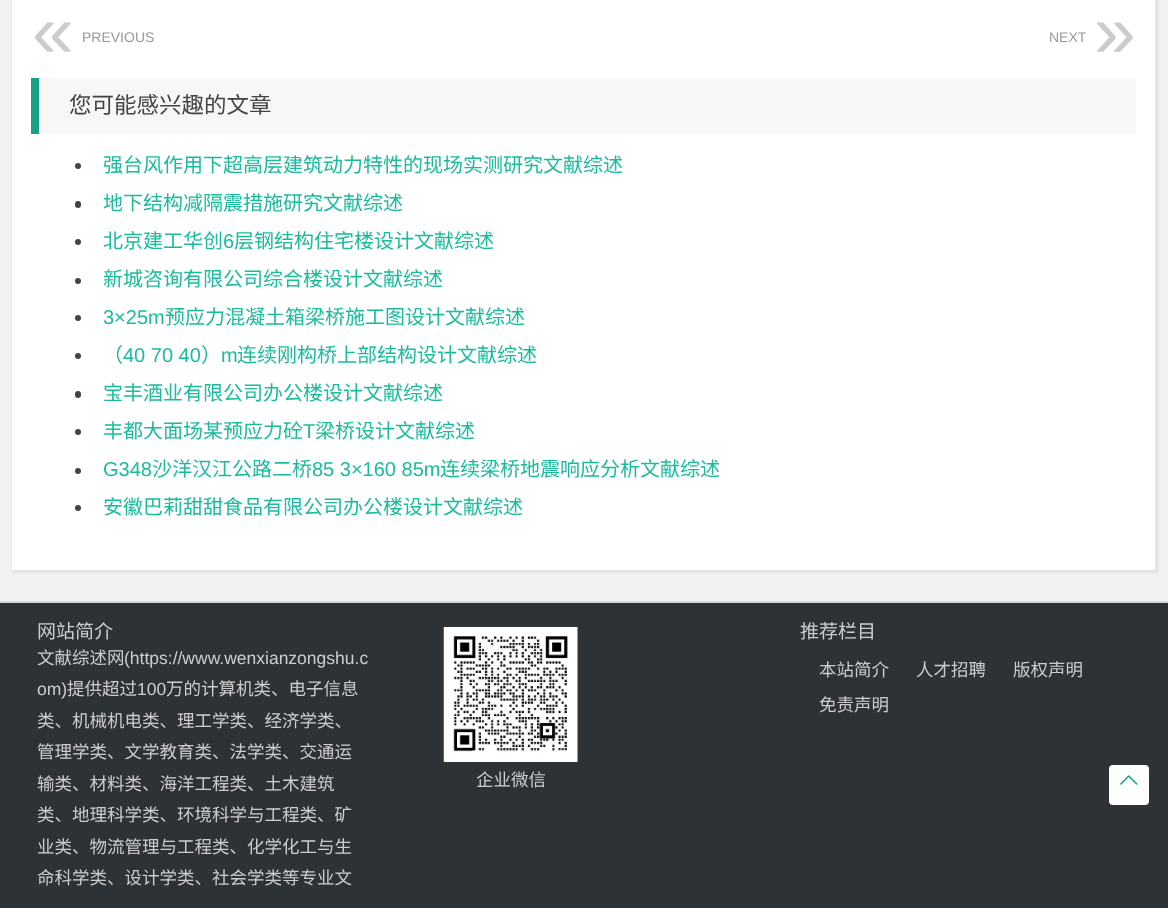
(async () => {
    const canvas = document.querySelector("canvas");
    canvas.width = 1168;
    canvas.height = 908;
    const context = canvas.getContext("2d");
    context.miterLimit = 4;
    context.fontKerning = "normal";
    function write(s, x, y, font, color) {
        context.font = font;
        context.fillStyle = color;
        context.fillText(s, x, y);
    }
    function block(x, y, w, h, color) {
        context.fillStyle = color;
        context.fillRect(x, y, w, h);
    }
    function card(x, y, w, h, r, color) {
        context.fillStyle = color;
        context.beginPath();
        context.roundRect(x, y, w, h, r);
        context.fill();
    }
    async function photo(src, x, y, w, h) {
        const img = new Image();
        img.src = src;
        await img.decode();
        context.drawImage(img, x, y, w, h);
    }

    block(0, 0, 1168, 908, "rgb(242, 242, 242)");
    context.fillStyle = "rgb(226, 222, 222)";
    context.filter = "blur(1px)";
    context.beginPath();
    context.roundRect(13, -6, 1145, 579, 2.5);
    context.fill();
    context.filter = "none";
    context.fillStyle = "rgb(255, 255, 255)";
    context.beginPath();
    context.roundRect(11.5, -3.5, 1144, 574, 2);
    context.fill();
    context.strokeStyle = "rgb(230, 230, 230)";
    context.stroke();
    write("«", 32, 57, "75px Liberation Sans", "rgb(204, 204, 204)");
    write("PREVIOUS", 82, 42, "14px Liberation Sans", "rgb(153, 153, 153)");
    write("NEXT", 1049, 42, "14px Liberation Sans", "rgb(153, 153, 153)");
    write("»", 1094, 57, "75px Liberation Sans", "rgb(204, 204, 204)");
    block(39, 78, 1097, 56, "rgb(247, 247, 247)");
    block(31, 78, 8, 56, "rgb(22, 160, 133)");
    write("您可能感兴趣的文章", 69, 113, "22.5px Noto Sans CJK SC", "rgb(68, 68, 68)");
    context.beginPath();
    context.arc(78, 166, 3, 0, Math.PI * 2);
    context.fill();
    write("强台风作用下超高层建筑动力特性的现场实测研究文献综述", 103, 172, "20px Noto Sans CJK SC", "rgb(26, 188, 156)");
    card(75, 201, 6, 7, 3, "rgb(68, 68, 68)");
    write("地下结构减隔震措施研究文献综述", 103, 210, "20px Noto Sans CJK SC", "rgb(26, 188, 156)");
    context.fillStyle = "rgb(68, 68, 68)";
    context.beginPath();
    context.arc(78, 242, 3, 0, Math.PI * 2);
    context.fill();
    write("北京建工华创", 103, 248, "20px Noto Sans CJK SC", "rgb(26, 188, 156)");
    write("6", 223, 248, "20px Liberation Sans", "rgb(26, 188, 156)");
    write("层钢结构住宅楼设计文献综述", 234, 248, "20px Noto Sans CJK SC", "rgb(26, 188, 156)");
    context.fillStyle = "rgb(68, 68, 68)";
    context.beginPath();
    context.arc(78, 281, 3, 0, Math.PI * 2);
    context.fill();
    write("新城咨询有限公司综合楼设计文献综述", 103, 286, "20px Noto Sans CJK SC", "rgb(26, 188, 156)");
    context.fillStyle = "rgb(68, 68, 68)";
    context.beginPath();
    context.arc(78, 318, 3, 0, Math.PI * 2);
    context.fill();
    write("3×25m", 103, 324, "20px Liberation Sans", "rgb(26, 188, 156)");
    write("预应力混凝土箱梁桥施工图设计文献综述", 165, 324, "20px Noto Sans CJK SC", "rgb(26, 188, 156)");
    context.fillStyle = "rgb(68, 68, 68)";
    context.beginPath();
    context.arc(78, 356, 3, 0, Math.PI * 2);
    context.fill();
    write("（", 103, 362, "20px Noto Sans CJK SC", "rgb(26, 188, 156)");
    write("40 70 40", 123, 362, "20px Liberation Sans", "rgb(26, 188, 156)");
    write("）", 201, 362, "20px Noto Sans CJK SC", "rgb(26, 188, 156)");
    write("m", 221, 362, "20px Liberation Sans", "rgb(26, 188, 156)");
    write("连续刚构桥上部结构设计文献综述", 237, 362, "20px Noto Sans CJK SC", "rgb(26, 188, 156)");
    card(75, 391, 6, 7, 3, "rgb(68, 68, 68)");
    write("宝丰酒业有限公司办公楼设计文献综述", 103, 400, "20px Noto Sans CJK SC", "rgb(26, 188, 156)");
    context.fillStyle = "rgb(68, 68, 68)";
    context.beginPath();
    context.arc(78, 432, 3, 0, Math.PI * 2);
    context.fill();
    write("丰都大面场某预应力砼", 103, 438, "20px Noto Sans CJK SC", "rgb(26, 188, 156)");
    write("T", 303, 438, "20px Liberation Sans", "rgb(26, 188, 156)");
    write("梁桥设计文献综述", 315, 438, "20px Noto Sans CJK SC", "rgb(26, 188, 156)");
    context.fillStyle = "rgb(68, 68, 68)";
    context.beginPath();
    context.arc(78, 471, 3, 0, Math.PI * 2);
    context.fill();
    write("G348", 103, 476, "20px Liberation Sans", "rgb(26, 188, 156)");
    write("沙洋汉江公路二桥", 152, 476, "20px Noto Sans CJK SC", "rgb(26, 188, 156)");
    write("85 3×160 85m", 312, 476, "20px Liberation Sans", "rgb(26, 188, 156)");
    write("连续梁桥地震响应分析文献综述", 440, 476, "20px Noto Sans CJK SC", "rgb(26, 188, 156)");
    context.fillStyle = "rgb(68, 68, 68)";
    context.beginPath();
    context.arc(78, 508, 3, 0, Math.PI * 2);
    context.fill();
    write("安徽巴莉甜甜食品有限公司办公楼设计文献综述", 103, 514, "20px Noto Sans CJK SC", "rgb(26, 188, 156)");
    context.fillStyle = "rgba(0, 0, 0, 0.1)";
    context.filter = "blur(0.5px)";
    context.beginPath();
    context.rect(0, 601, 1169, 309);
    context.fill();
    context.filter = "none";
    block(0, 603, 1168, 305, "rgb(45, 50, 55)");
    write("网站简介", 37, 638, "19px Noto Sans CJK SC", "rgb(204, 204, 204)");
    write("文献综述网", 37, 664, "17.5px Noto Sans CJK SC", "rgb(204, 204, 204)");
    write("(https://www.wenxianzongshu.c", 124, 664, "17.5px Liberation Sans", "rgb(204, 204, 204)");
    write("om)", 37, 695, "17.5px Liberation Sans", "rgb(204, 204, 204)");
    write("提供超过", 67, 695, "17.5px Noto Sans CJK SC", "rgb(204, 204, 204)");
    write("100", 137, 695, "17.5px Liberation Sans", "rgb(204, 204, 204)");
    write("万的计算机类、电子信息", 166, 695, "17.5px Noto Sans CJK SC", "rgb(204, 204, 204)");
    write("类、机械机电类、理工学类、经济学类、", 37, 727, "17.5px Noto Sans CJK SC", "rgb(204, 204, 204)");
    write("管理学类、文学教育类、法学类、交通运", 37, 758, "17.5px Noto Sans CJK SC", "rgb(204, 204, 204)");
    write("输类、材料类、海洋工程类、土木建筑", 37, 790, "17.5px Noto Sans CJK SC", "rgb(204, 204, 204)");
    write("类、地理科学类、环境科学与工程类、矿", 37, 821, "17.5px Noto Sans CJK SC", "rgb(204, 204, 204)");
    write("业类、物流管理与工程类、化学化工与生", 37, 853, "17.5px Noto Sans CJK SC", "rgb(204, 204, 204)");
    write("命科学类、设计学类、社会学类等专业文", 37, 884, "17.5px Noto Sans CJK SC", "rgb(204, 204, 204)");
    write("推荐栏目", 800, 638, "19px Noto Sans CJK SC", "rgb(204, 204, 204)");
    write("本站简介", 819, 676, "17.5px Noto Sans CJK SC", "rgb(204, 204, 204)");
    write("人才招聘", 916, 676, "17.5px Noto Sans CJK SC", "rgb(204, 204, 204)");
    write("版权声明", 1013, 676, "17.5px Noto Sans CJK SC", "rgb(204, 204, 204)");
    write("免责声明", 819, 711, "17.5px Noto Sans CJK SC", "rgb(204, 204, 204)");
    await photo("media/1.png", 443, 627, 135, 135);
    write("企业微信", 476, 786, "17.5px Noto Sans CJK SC", "rgb(204, 204, 204)");
    card(1109, 765, 40, 40, 4, "rgb(255, 255, 255)");
    await photo("media/2.png", 1120, 775, 18, 10);
})();
